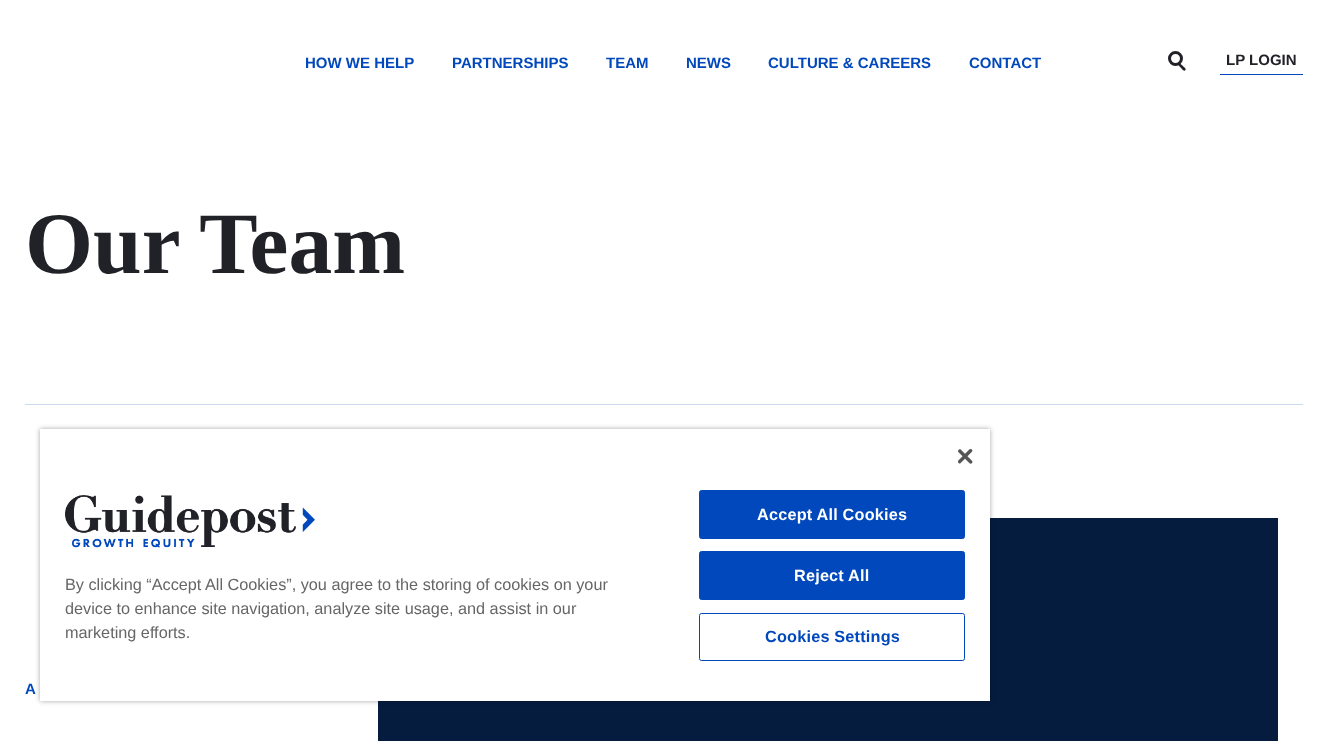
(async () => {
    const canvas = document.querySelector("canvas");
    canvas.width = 1327;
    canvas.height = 741;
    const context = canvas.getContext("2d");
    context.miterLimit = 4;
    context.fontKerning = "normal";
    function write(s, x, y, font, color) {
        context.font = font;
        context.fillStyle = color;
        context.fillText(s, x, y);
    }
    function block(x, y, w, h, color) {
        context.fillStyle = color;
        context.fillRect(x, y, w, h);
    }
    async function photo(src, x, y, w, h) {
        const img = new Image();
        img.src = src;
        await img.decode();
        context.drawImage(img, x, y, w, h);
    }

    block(0, 0, 1327, 741, "rgb(255, 255, 255)");
    write("HOW WE HELP", 305, 68, "bold 15px Liberation Sans", "rgb(0, 72, 187)");
    write("PARTNERSHIPS", 452, 68, "bold 15px Liberation Sans", "rgb(0, 72, 187)");
    write("TEAM", 606, 68, "bold 15px Liberation Sans", "rgb(0, 72, 187)");
    write("NEWS", 686, 68, "bold 15px Liberation Sans", "rgb(0, 72, 187)");
    write("CULTURE & CAREERS", 768, 68, "bold 15px Liberation Sans", "rgb(0, 72, 187)");
    write("CONTACT", 969, 68, "bold 15px Liberation Sans", "rgb(0, 72, 187)");
    context.beginPath();
    context.arc(1175.5, 58.5, 6, 0, Math.PI * 2);
    context.strokeStyle = "rgb(33, 33, 40)";
    context.lineWidth = 3;
    context.stroke();
    context.fillStyle = "rgb(33, 33, 40)";
    context.beginPath();
    context.moveTo(1180, 63.5);
    context.lineTo(1183, 66);
    context.bezierCurveTo(1183.5, 67, 1186.5, 68.5, 1185.5, 70);
    context.bezierCurveTo(1184, 72.5, 1181, 67.5, 1180, 67);
    context.lineTo(1178, 64.5);
    context.bezierCurveTo(1177.5, 63.5, 1179, 62.5, 1180, 63.5);
    context.closePath();
    context.fill();
    write("LP LOGIN", 1226, 65, "bold 15px Liberation Sans", "rgb(33, 33, 40)");
    block(1220, 74, 83, 1, "rgb(0, 72, 187)");
    block(25, 404, 1278, 1, "rgb(204, 218, 241)");
    write("Our Team", 25, 273, "bold 87.5px Liberation Serif", "rgb(33, 33, 40)");
    context.letterSpacing = "1px";
    write("A", 25, 694, "bold 15px Liberation Sans", "rgb(0, 72, 187)");
    block(378, 518, 900, 223, "rgb(6, 28, 63)");
    context.fillStyle = "rgba(0, 0, 0, 0.35)";
    context.filter = "blur(2.5px)";
    context.beginPath();
    context.rect(40, 429, 950, 272);
    context.fill();
    context.filter = "none";
    block(40, 429, 950, 272, "rgb(255, 255, 255)");
    await photo("media/1.png", 958, 449, 15, 15);
    await photo("media/2.png", 65, 495, 250, 53);
    context.letterSpacing = "0px";
    write("By clicking “Accept All Cookies”, you agree to the storing of cookies on your", 65, 590, "16.25px Liberation Sans", "rgb(102, 102, 102)");
    write("device to enhance site navigation, analyze site usage, and assist in our", 65, 614, "16.25px Liberation Sans", "rgb(102, 102, 102)");
    write("marketing efforts.", 65, 638, "16.25px Liberation Sans", "rgb(102, 102, 102)");
    context.fillStyle = "rgb(0, 72, 187)";
    context.beginPath();
    context.roundRect(699.5, 490.5, 265, 48, 2);
    context.fill();
    context.strokeStyle = "rgb(0, 72, 187)";
    context.lineWidth = 1;
    context.stroke();
    context.letterSpacing = "0.2px";
    write("Accept All Cookies", 757, 520, "bold 16.25px Liberation Sans", "rgb(255, 255, 255)");
    context.fillStyle = "rgb(0, 72, 187)";
    context.beginPath();
    context.roundRect(699.5, 551.5, 265, 48, 2);
    context.fill();
    context.stroke();
    write("Reject All", 794, 581, "bold 16.25px Liberation Sans", "rgb(255, 255, 255)");
    context.beginPath();
    context.roundRect(699.5, 613.5, 265, 47, 2);
    context.stroke();
    write("Cookies Settings", 765, 642, "bold 16.25px Liberation Sans", "rgb(0, 72, 187)");
})();
